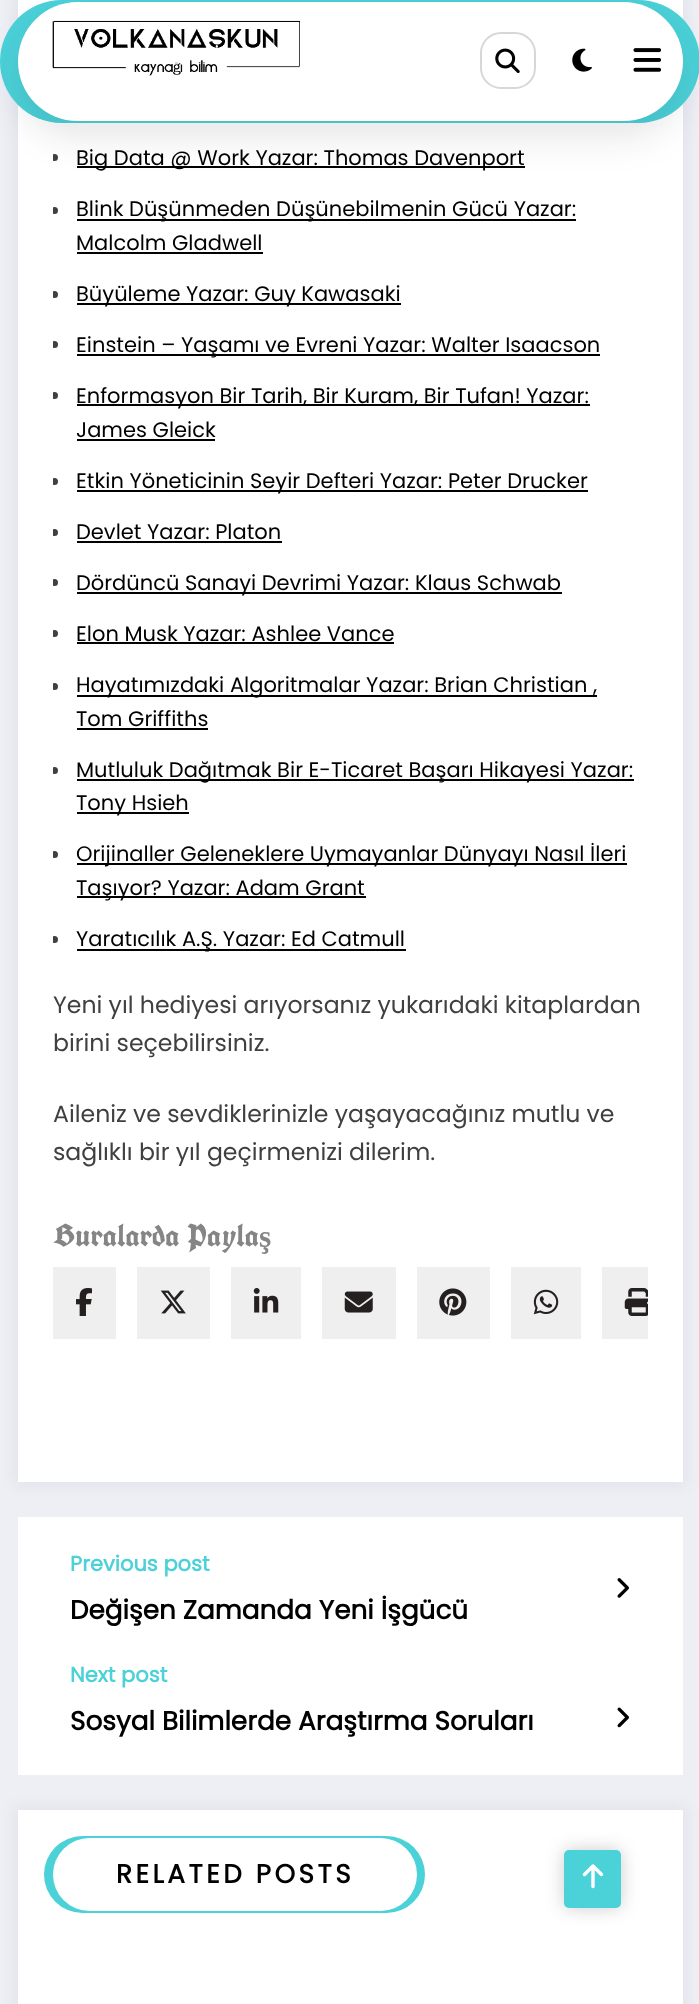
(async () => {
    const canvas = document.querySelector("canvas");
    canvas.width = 699;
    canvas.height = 2004;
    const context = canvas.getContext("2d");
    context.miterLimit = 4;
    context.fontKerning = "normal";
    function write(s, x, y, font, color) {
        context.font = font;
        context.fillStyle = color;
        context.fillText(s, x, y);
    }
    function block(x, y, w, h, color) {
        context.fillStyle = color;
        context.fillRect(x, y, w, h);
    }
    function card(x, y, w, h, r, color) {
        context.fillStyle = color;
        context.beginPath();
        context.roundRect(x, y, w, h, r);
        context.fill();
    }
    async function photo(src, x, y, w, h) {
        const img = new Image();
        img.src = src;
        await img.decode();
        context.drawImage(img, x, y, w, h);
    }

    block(0, 0, 699, 2004, "rgb(238, 238, 245)");
    context.fillStyle = "rgba(23, 23, 35, 0.05)";
    context.filter = "blur(7px)";
    context.beginPath();
    context.rect(14, -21, 672, 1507);
    context.fill();
    context.filter = "none";
    block(18, 0, 665, 1482, "rgb(255, 255, 255)");
    card(0, 0, 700, 123, 61.5, "rgb(75, 209, 216)");
    context.save();
    context.beginPath();
    context.rect(53, 0, 595, 1377);
    context.clip();
    context.fillStyle = "rgb(64, 64, 64)";
    context.beginPath();
    context.arc(54.5, 157.5, 3.5, 0, Math.PI * 2);
    context.fill();
    context.restore();
    block(77, 166, 448, 2, "rgb(0, 0, 0)");
    context.fillStyle = "rgba(20, 18, 35, 0.1)";
    context.filter = "blur(17.5px)";
    context.beginPath();
    context.roundRect(18, 19, 665, 119, 59.5);
    context.fill();
    context.filter = "none";
    card(18, 2, 665, 119, 59.5, "rgb(255, 255, 255)");
    await photo("media/1.png", 52, 20, 248, 56);
    context.beginPath();
    context.roundRect(481, 33, 54, 55, 20);
    context.strokeStyle = "rgb(215, 215, 215)";
    context.lineWidth = 2;
    context.stroke();
    await photo("media/2.png", 495, 48, 25, 25);
    await photo("media/3.png", 572, 48, 20, 24);
    await photo("media/4.png", 633, 48, 28, 24);
    write("Big Data @ Work Yazar: Thomas Davenport", 76, 165, "21px Poppins", "rgb(0, 0, 0)");
    context.save();
    context.beginPath();
    context.rect(53, 0, 595, 1377);
    context.clip();
    context.fillStyle = "rgb(64, 64, 64)";
    context.beginPath();
    context.arc(54.5, 210.5, 3.5, 0, Math.PI * 2);
    context.fill();
    context.restore();
    block(77, 219, 499, 2, "rgb(0, 0, 0)");
    write("Blink Düşünmeden Düşünebilmenin Gücü Yazar:", 76, 216, "21px Poppins", "rgb(0, 0, 0)");
    write("Malcolm Gladwell", 76, 250, "21px Poppins", "rgb(0, 0, 0)");
    block(77, 252, 186, 2, "rgb(0, 0, 0)");
    context.save();
    context.beginPath();
    context.rect(53, 0, 595, 1377);
    context.clip();
    context.fillStyle = "rgb(64, 64, 64)";
    context.beginPath();
    context.arc(54.5, 294.5, 3.5, 0, Math.PI * 2);
    context.fill();
    context.restore();
    block(77, 303, 324, 2, "rgb(0, 0, 0)");
    write("Büyüleme Yazar: Guy Kawasaki", 76, 301, "21px Poppins", "rgb(0, 0, 0)");
    context.save();
    context.beginPath();
    context.rect(53, 0, 595, 1377);
    context.clip();
    context.fillStyle = "rgb(64, 64, 64)";
    context.beginPath();
    context.arc(54.5, 344.5, 3.5, 0, Math.PI * 2);
    context.fill();
    context.restore();
    block(77, 354, 523, 2, "rgb(0, 0, 0)");
    write("Einstein – Yaşamı ve Evreni Yazar: Walter Isaacson", 76, 352, "21px Poppins", "rgb(0, 0, 0)");
    context.save();
    context.beginPath();
    context.rect(53, 0, 595, 1377);
    context.clip();
    context.fillStyle = "rgb(64, 64, 64)";
    context.beginPath();
    context.arc(54.5, 395.5, 3.5, 0, Math.PI * 2);
    context.fill();
    context.restore();
    block(77, 404, 513, 2, "rgb(0, 0, 0)");
    write("Enformasyon Bir Tarih, Bir Kuram, Bir Tufan! Yazar:", 76, 403, "21px Poppins", "rgb(0, 0, 0)");
    write("James Gleick", 76, 437, "21px Poppins", "rgb(0, 0, 0)");
    block(77, 439, 138, 2, "rgb(0, 0, 0)");
    context.save();
    context.beginPath();
    context.rect(53, 0, 595, 1377);
    context.clip();
    context.fillStyle = "rgb(64, 64, 64)";
    context.beginPath();
    context.arc(54.5, 481.5, 3.5, 0, Math.PI * 2);
    context.fill();
    context.restore();
    block(77, 490, 511, 2, "rgb(0, 0, 0)");
    write("Etkin Yöneticinin Seyir Defteri Yazar: Peter Drucker", 76, 488, "21px Poppins", "rgb(0, 0, 0)");
    context.save();
    context.beginPath();
    context.rect(53, 0, 595, 1377);
    context.clip();
    context.fillStyle = "rgb(64, 64, 64)";
    context.beginPath();
    context.arc(54.5, 532.5, 3.5, 0, Math.PI * 2);
    context.fill();
    context.restore();
    write("Devlet Yazar: Platon", 76, 539, "21px Poppins", "rgb(0, 0, 0)");
    block(77, 541, 205, 2, "rgb(0, 0, 0)");
    context.save();
    context.beginPath();
    context.rect(53, 0, 595, 1377);
    context.clip();
    context.fillStyle = "rgb(64, 64, 64)";
    context.beginPath();
    context.arc(54.5, 582.5, 3.5, 0, Math.PI * 2);
    context.fill();
    context.restore();
    block(77, 592, 485, 2, "rgb(0, 0, 0)");
    write("Dördüncü Sanayi Devrimi Yazar: Klaus Schwab", 76, 590, "21px Poppins", "rgb(0, 0, 0)");
    context.save();
    context.beginPath();
    context.rect(53, 0, 595, 1377);
    context.clip();
    context.fillStyle = "rgb(64, 64, 64)";
    context.beginPath();
    context.arc(54.5, 633.5, 3.5, 0, Math.PI * 2);
    context.fill();
    context.restore();
    write("Elon Musk Yazar: Ashlee Vance", 76, 641, "21px Poppins", "rgb(0, 0, 0)");
    block(77, 642, 317, 2, "rgb(0, 0, 0)");
    context.save();
    context.beginPath();
    context.rect(53, 0, 595, 1377);
    context.clip();
    context.fillStyle = "rgb(64, 64, 64)";
    context.beginPath();
    context.arc(54.5, 686.5, 3.5, 0, Math.PI * 2);
    context.fill();
    context.restore();
    block(77, 695, 520, 2, "rgb(0, 0, 0)");
    write("Hayatımızdaki Algoritmalar Yazar: Brian Christian ,", 76, 692, "21px Poppins", "rgb(0, 0, 0)");
    write("Tom Griffiths", 76, 726, "21px Poppins", "rgb(0, 0, 0)");
    block(77, 728, 131, 2, "rgb(0, 0, 0)");
    context.save();
    context.beginPath();
    context.rect(53, 0, 595, 1377);
    context.clip();
    context.fillStyle = "rgb(64, 64, 64)";
    context.beginPath();
    context.arc(54.5, 770.5, 3.5, 0, Math.PI * 2);
    context.fill();
    context.restore();
    block(77, 779, 557, 2, "rgb(0, 0, 0)");
    write("Mutluluk Dağıtmak Bir E-Ticaret Başarı Hikayesi Yazar:", 76, 777, "21px Poppins", "rgb(0, 0, 0)");
    block(77, 812, 112, 2, "rgb(0, 0, 0)");
    write("Tony Hsieh", 76, 810, "21px Poppins", "rgb(0, 0, 0)");
    context.save();
    context.beginPath();
    context.rect(53, 0, 595, 1377);
    context.clip();
    context.fillStyle = "rgb(64, 64, 64)";
    context.beginPath();
    context.arc(54.5, 854.5, 3.5, 0, Math.PI * 2);
    context.fill();
    context.restore();
    block(77, 863, 550, 2, "rgb(0, 0, 0)");
    write("Orijinaller Geleneklere Uymayanlar Dünyayı Nasıl İleri", 76, 861, "21px Poppins", "rgb(0, 0, 0)");
    block(77, 896, 289, 2, "rgb(0, 0, 0)");
    write("Taşıyor? Yazar: Adam Grant", 76, 895, "21px Poppins", "rgb(0, 0, 0)");
    context.save();
    context.beginPath();
    context.rect(53, 0, 595, 1377);
    context.clip();
    context.fillStyle = "rgb(64, 64, 64)";
    context.beginPath();
    context.arc(54.5, 939.5, 3.5, 0, Math.PI * 2);
    context.fill();
    context.restore();
    block(77, 949, 329, 2, "rgb(0, 0, 0)");
    write("Yaratıcılık A.Ş. Yazar: Ed Catmull", 76, 946, "21px Poppins", "rgb(0, 0, 0)");
    write("Yeni yıl hediyesi arıyorsanız yukarıdaki kitaplardan", 53, 1013, "23.6px Poppins", "rgb(64, 64, 64)");
    write("birini seçebilirsiniz.", 53, 1051, "23.6px Poppins", "rgb(64, 64, 64)");
    write("Aileniz ve sevdiklerinizle yaşayacağınız mutlu ve", 53, 1122, "23.6px Poppins", "rgb(64, 64, 64)");
    write("sağlıklı bir yıl geçirmenizi dilerim.", 53, 1160, "23.6px Poppins", "rgb(64, 64, 64)");
    write("Buralarda Paylaş", 53, 1247, "bold 31.5px UnifrakturCook", "rgb(133, 133, 133)");
    block(53, 1267, 63, 72, "rgb(239, 239, 239)");
    await photo("media/5.png", 76, 1288, 16, 28);
    block(137, 1267, 73, 72, "rgb(239, 239, 239)");
    await photo("media/6.png", 160, 1290, 26, 24);
    block(231, 1267, 70, 72, "rgb(239, 239, 239)");
    await photo("media/7.png", 253, 1288, 26, 25);
    block(322, 1267, 74, 72, "rgb(239, 239, 239)");
    await photo("media/8.png", 344, 1291, 29, 22);
    block(417, 1267, 73, 72, "rgb(239, 239, 239)");
    await photo("media/9.png", 439, 1288, 28, 28);
    block(511, 1267, 70, 72, "rgb(239, 239, 239)");
    await photo("media/10.png", 533, 1289, 26, 26);
    block(602, 1267, 46, 72, "rgb(239, 239, 239)");
    await photo("media/11.png", 624, 1288, 24, 28);
    block(18, 1517, 665, 258, "rgb(255, 255, 255)");
    write("Previous post", 70, 1571, "bold 21px Poppins", "rgb(75, 209, 216)");
    write("Değişen Zamanda Yeni İşgücü", 70, 1619, "bold 26.25px Poppins", "rgb(0, 0, 0)");
    await photo("media/12.png", 617, 1578, 12, 20);
    write("Next post", 70, 1682, "bold 21px Poppins", "rgb(75, 209, 216)");
    write("Sosyal Bilimlerde Araştırma Soruları", 70, 1730, "bold 26.25px Poppins", "rgb(0, 0, 0)");
    await photo("media/13.png", 617, 1707, 12, 21);
    context.fillStyle = "rgba(23, 23, 35, 0.05)";
    context.filter = "blur(7px)";
    context.beginPath();
    context.rect(14, 1806, 672, 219);
    context.fill();
    context.filter = "none";
    block(18, 1810, 665, 194, "rgb(255, 255, 255)");
    card(44, 1836, 381, 77, 38.5, "rgb(75, 209, 216)");
    card(53, 1838, 364, 73, 36.5, "rgb(255, 255, 255)");
    context.letterSpacing = "3.5px";
    write("RELATED POSTS", 116, 1883, "bold 26.25px Poppins", "rgb(0, 0, 0)");
    context.fillStyle = "rgba(0, 0, 0, 0.2)";
    context.filter = "blur(9px)";
    context.beginPath();
    context.roundRect(564, 1850, 57, 58, 5);
    context.fill();
    context.filter = "none";
    card(564, 1850, 57, 58, 5, "rgb(75, 209, 216)");
    await photo("media/14.png", 582, 1864, 22, 25);
})();
